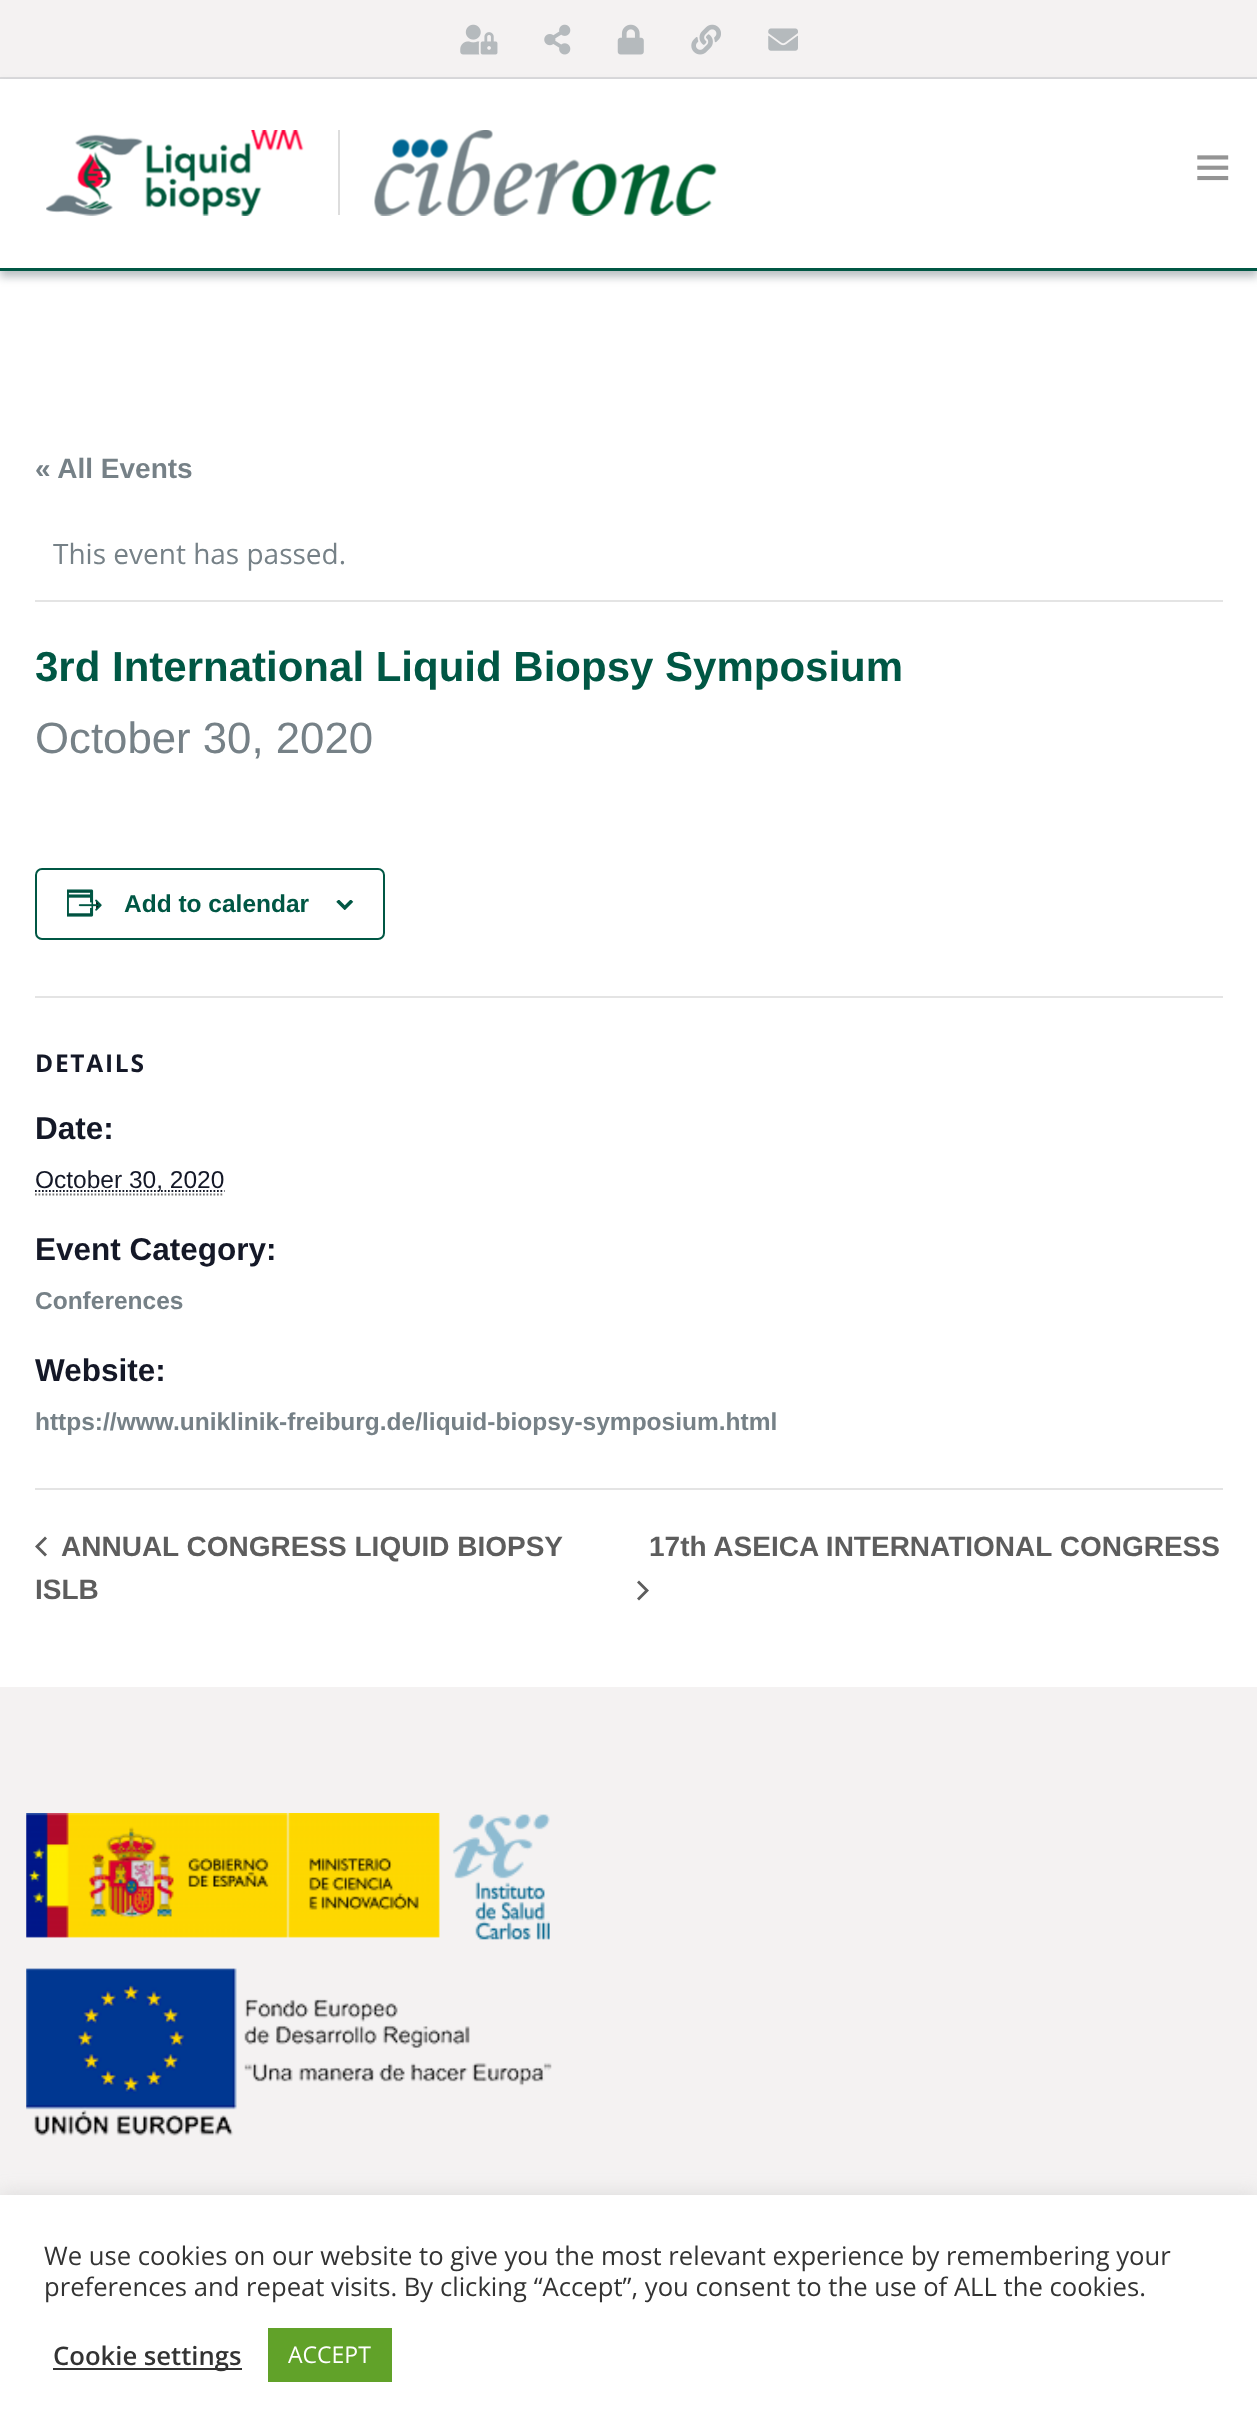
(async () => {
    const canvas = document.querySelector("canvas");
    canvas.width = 1257;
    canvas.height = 2433;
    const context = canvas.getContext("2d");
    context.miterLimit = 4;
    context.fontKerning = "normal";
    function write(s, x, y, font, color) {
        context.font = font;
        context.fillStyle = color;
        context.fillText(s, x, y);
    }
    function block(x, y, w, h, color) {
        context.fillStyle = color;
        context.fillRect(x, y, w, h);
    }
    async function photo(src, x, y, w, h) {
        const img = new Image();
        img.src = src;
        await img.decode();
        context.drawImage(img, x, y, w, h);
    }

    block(0, 0, 1257, 2433, "rgb(255, 255, 255)");
    block(0, 0, 1257, 77, "rgb(244, 242, 242)");
    block(0, 77, 1257, 2, "rgb(219, 219, 221)");
    await photo("media/1.png", 460, 24, 38, 31);
    await photo("media/2.png", 544, 24, 27, 31);
    await photo("media/3.png", 617, 24, 27, 31);
    await photo("media/4.png", 691, 24, 30, 31);
    await photo("media/5.png", 768, 28, 30, 23);
    context.save();
    context.beginPath();
    context.moveTo(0, 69);
    context.lineTo(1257, 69);
    context.lineTo(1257, 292);
    context.lineTo(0, 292);
    context.closePath();
    context.moveTo(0, 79);
    context.lineTo(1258, 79);
    context.lineTo(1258, 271);
    context.lineTo(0, 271);
    context.closePath();
    context.clip("evenodd");
    context.fillStyle = "rgba(118, 129, 135, 0.5)";
    context.filter = "blur(4.5px)";
    context.beginPath();
    context.rect(0, 84, 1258, 193);
    context.fill();
    context.filter = "none";
    context.restore();
    await photo("media/6.png", 46, 130, 258, 86);
    block(338, 130, 2, 85, "rgb(221, 221, 221)");
    await photo("media/7.png", 374, 130, 343, 86);
    await photo("media/8.png", 1197, 155, 32, 26);
    block(0, 268, 1257, 3, "rgb(0, 87, 68)");
    write("« All Events", 35, 478, "bold 28px Liberation Sans", "rgb(118, 129, 135)");
    block(35, 600, 1188, 2, "rgb(228, 228, 228)");
    write("This event has passed.", 53, 564, "28px Open Sans", "rgb(118, 129, 135)");
    write("3rd International Liquid Biopsy Symposium", 35, 681, "bold 42px Liberation Sans", "rgb(0, 87, 68)");
    write("October 30, 2020", 35, 753, "43.75px Liberation Sans", "rgb(118, 129, 135)");
    context.beginPath();
    context.roundRect(36, 869, 348, 70, 6);
    context.strokeStyle = "rgb(0, 87, 68)";
    context.lineWidth = 2;
    context.stroke();
    await photo("media/9.png", 67, 889, 35, 28);
    write("Add to calendar", 124, 912, "bold 24.5px Liberation Sans", "rgb(0, 87, 68)");
    await photo("media/10.png", 336, 900, 18, 10);
    block(35, 996, 1188, 2, "rgb(228, 228, 228)");
    context.letterSpacing = "1.75px";
    write("DETAILS", 35, 1072, "bold 24.5px Open Sans", "rgb(20, 24, 39)");
    context.letterSpacing = "0px";
    write("Date:", 35, 1139, "bold 31.5px Liberation Sans", "rgb(20, 24, 39)");
    context.beginPath();
    context.moveTo(35, 1191);
    context.lineTo(224.5, 1191);
    context.strokeStyle = "rgb(20, 24, 39)";
    context.lineWidth = 1.8;
    context.setLineDash([1.75, 1.75]);
    context.stroke();
    write("October 30, 2020", 35, 1188, "24.5px Liberation Sans", "rgb(20, 24, 39)");
    context.beginPath();
    context.moveTo(35, 1194.5);
    context.lineTo(224, 1194.5);
    context.strokeStyle = "rgb(119, 119, 119)";
    context.stroke();
    write("Event Category:", 35, 1260, "bold 31.5px Liberation Sans", "rgb(20, 24, 39)");
    write("Conferences", 35, 1309, "bold 24.5px Liberation Sans", "rgb(118, 129, 135)");
    write("Website:", 35, 1381, "bold 31.5px Liberation Sans", "rgb(20, 24, 39)");
    write("https://www.uniklinik-freiburg.de/liquid-biopsy-symposium.html", 35, 1430, "bold 24.5px Liberation Sans", "rgb(118, 129, 135)");
    block(35, 1488, 1188, 2, "rgb(228, 228, 228)");
    context.fillStyle = "rgb(93, 93, 93)";
    context.beginPath();
    context.moveTo(47, 1554.5);
    context.lineTo(45, 1556.5);
    context.lineTo(35, 1546.5);
    context.lineTo(45, 1536.5);
    context.lineTo(47, 1538.5);
    context.lineTo(39, 1546.5);
    context.closePath();
    context.fill();
    write("ANNUAL CONGRESS LIQUID BIOPSY", 61, 1556, "bold 28px Liberation Sans", "rgb(93, 93, 93)");
    write("ISLB", 35, 1599, "bold 28px Liberation Sans", "rgb(93, 93, 93)");
    write("17th ASEICA INTERNATIONAL CONGRESS", 649, 1556, "bold 28px Liberation Sans", "rgb(93, 93, 93)");
    context.beginPath();
    context.moveTo(637, 1582.5);
    context.lineTo(639, 1580.5);
    context.lineTo(649, 1590.5);
    context.lineTo(639, 1600.5);
    context.lineTo(637, 1598.5);
    context.lineTo(645, 1590.5);
    context.closePath();
    context.fill();
    block(0, 1687, 1257, 508, "rgb(244, 242, 242)");
    await photo("media/11.png", 26, 1813, 526, 323);
    context.fillStyle = "rgba(172, 171, 171, 0.3)";
    context.filter = "blur(9px)";
    context.beginPath();
    context.rect(0, 2193, 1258, 240);
    context.fill();
    context.filter = "none";
    block(0, 2195, 1257, 238, "rgb(255, 255, 255)");
    write("We use cookies on our website to give you the most relevant experience by remembering your", 44, 2265, "25.65px Open Sans", "rgb(51, 51, 51)");
    write("preferences and repeat visits. By clicking “Accept”, you consent to the use of ALL the cookies.", 44, 2296, "25.65px Open Sans", "rgb(51, 51, 51)");
    block(53, 2368, 189, 2, "rgb(51, 51, 51)");
    write("Cookie settings", 53, 2365, "600 25.65px Open Sans", "rgb(51, 51, 51)");
    block(268, 2328, 124, 54, "rgb(97, 162, 41)");
    write("ACCEPT", 288, 2363, "23px Open Sans", "rgb(255, 255, 255)");
})();
